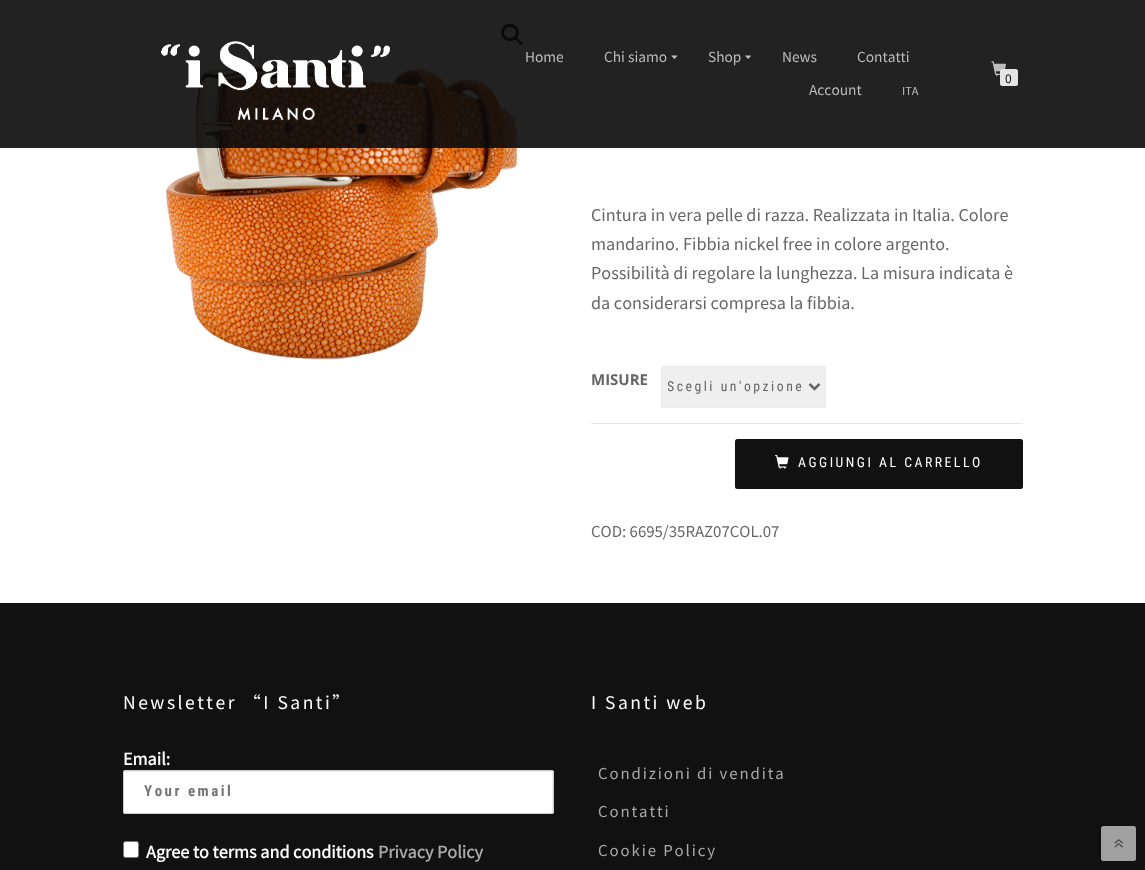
(async () => {
    const canvas = document.querySelector("canvas");
    canvas.width = 1145;
    canvas.height = 870;
    const context = canvas.getContext("2d");
    context.miterLimit = 4;
    context.fontKerning = "none";
    function write(s, x, y, font, color) {
        context.font = font;
        context.fillStyle = color;
        context.fillText(s, x, y);
    }
    function block(x, y, w, h, color) {
        context.fillStyle = color;
        context.fillRect(x, y, w, h);
    }
    function card(x, y, w, h, r, color) {
        context.fillStyle = color;
        context.beginPath();
        context.roundRect(x, y, w, h, r);
        context.fill();
    }
    async function photo(src, x, y, w, h) {
        const img = new Image();
        img.src = src;
        await img.decode();
        context.drawImage(img, x, y, w, h);
    }

    block(0, 0, 1145, 870, "rgb(255, 255, 255)");
    context.beginPath();
    context.roundRect(502.5, 25.5, 15, 14, 7);
    context.strokeStyle = "rgb(0, 0, 0)";
    context.lineWidth = 3;
    context.stroke();
    context.fillStyle = "rgb(0, 0, 0)";
    context.beginPath();
    context.moveTo(515, 37.5);
    context.bezierCurveTo(516.5, 36.5, 519, 39.5, 519.5, 40.5);
    context.bezierCurveTo(520.5, 41, 523.5, 43.5, 522.5, 45);
    context.bezierCurveTo(521, 46, 518.5, 43, 518, 42);
    context.bezierCurveTo(517, 41.5, 514, 39, 515, 37.5);
    context.closePath();
    context.fill();
    await photo("media/5.png", 166, 59, 352, 301);
    block(0, 0, 1145, 148, "rgba(10, 10, 10, 0.9)");
    await photo("media/1.png", 161, 41, 229, 80);
    write("Home", 525, 62, "100 13.75px Noto Sans TC", "rgb(189, 189, 189)");
    write("Chi siamo", 604, 62, "100 13.75px Noto Sans TC", "rgb(189, 189, 189)");
    await photo("media/2.png", 671, 55, 7, 4);
    write("Shop", 708, 62, "100 13.75px Noto Sans TC", "rgb(189, 189, 189)");
    await photo("media/3.png", 745, 55, 6, 4);
    write("News", 782, 62, "100 13.75px Noto Sans TC", "rgb(189, 189, 189)");
    write("Contatti", 857, 62, "100 13.75px Noto Sans TC", "rgb(189, 189, 189)");
    write("Account", 809, 95, "100 13.75px Noto Sans TC", "rgb(189, 189, 189)");
    write("ITA", 902, 95, "100 11px Noto Sans TC", "rgb(189, 189, 189)");
    await photo("media/4.png", 991, 61, 15, 16);
    card(1000, 69, 18, 17, 2.5, "rgb(229, 229, 229)");
    write("0", 1005, 83, "100 12px Noto Sans TC", "rgb(17, 17, 17)");
    write("Cintura in vera pelle di razza. Realizzata", 591, 221, "100 16.25px Noto Sans TC", "rgb(102, 102, 102)");
    write("in Italia. Colore", 894, 221, "100 16.25px Noto Sans TC", "rgb(102, 102, 102)");
    write("mandarino. Fibbia nickel free in colore argento.", 591, 250, "100 16.25px Noto Sans TC", "rgb(102, 102, 102)");
    write("Possibilità di regolare la lunghezza. La misura indicata", 591, 279, "100 16.25px Noto Sans TC", "rgb(102, 102, 102)");
    write("è", 1004, 279, "100 16.25px Noto Sans TC", "rgb(102, 102, 102)");
    write("da considerarsi compresa la fibbia.", 591, 309, "100 16.25px Noto Sans TC", "rgb(102, 102, 102)");
    write("MISURE", 591, 385, "bold 15px Open Sans", "rgb(102, 102, 102)");
    context.fillStyle = "rgb(239, 239, 239)";
    context.beginPath();
    context.roundRect(661.5, 366.5, 164, 41, 2);
    context.fill();
    context.strokeStyle = "rgb(234, 234, 234)";
    context.lineWidth = 1;
    context.stroke();
    context.beginPath();
    context.moveTo(809.5, 384);
    context.lineTo(814.5, 389);
    context.lineTo(819.5, 384);
    context.strokeStyle = "rgb(102, 102, 102)";
    context.lineWidth = 2.5;
    context.stroke();
    context.save();
    context.beginPath();
    context.rect(668, 378, 137, 18);
    context.clip();
    context.letterSpacing = "2.5px";
    write("Scegli un'opzione", 667, 391, "13.75px Roboto Condensed", "rgb(102, 102, 102)");
    context.restore();
    block(591, 423, 432, 1, "rgb(230, 230, 230)");
    card(735, 439, 288, 50, 2.5, "rgb(17, 17, 17)");
    await photo("media/6.png", 775, 455, 14, 14);
    context.letterSpacing = "2.5px";
    write("AGGIUNGI AL CARRELLO", 798, 467, "13.75px Roboto Condensed", "rgb(255, 255, 255)");
    context.letterSpacing = "0px";
    write("COD: 6695/35RAZ07COL.07", 591, 537, "100 15px Noto Sans TC", "rgb(102, 102, 102)");
    block(0, 603, 1145, 267, "rgb(17, 17, 17)");
    context.letterSpacing = "2.5px";
    write("Newsletter “I Santi”", 123, 709, "100 17.5px Noto Sans TC", "rgb(255, 255, 255)");
    context.letterSpacing = "0px";
    write("Email:", 123, 765, "bold 16.25px Noto Sans TC", "rgb(255, 255, 255)");
    card(123, 770, 431, 44, 2.5, "rgb(255, 255, 255)");
    context.fillStyle = "rgb(236, 236, 236)";
    context.beginPath();
    context.moveTo(125, 772);
    context.lineTo(551, 772);
    context.bezierCurveTo(553, 772, 552, 784, 552, 787);
    context.lineTo(552, 813);
    context.lineTo(553, 812);
    context.lineTo(553, 772);
    context.lineTo(552, 771);
    context.lineTo(125, 771);
    context.bezierCurveTo(124, 771, 124, 773, 124, 774);
    context.bezierCurveTo(124, 773, 124, 772, 125, 772);
    context.closePath();
    context.fill();
    context.beginPath();
    context.roundRect(123.5, 770.5, 430, 43, 2);
    context.strokeStyle = "rgb(204, 204, 204)";
    context.lineWidth = 1;
    context.stroke();
    context.letterSpacing = "2.5px";
    write("Your email", 144, 796, "bold 15px Roboto Condensed", "rgb(117, 117, 117)");
    context.fillStyle = "rgb(255, 255, 255)";
    context.beginPath();
    context.roundRect(123.5, 841.5, 15, 16, 2);
    context.fill();
    context.strokeStyle = "rgb(118, 118, 118)";
    context.stroke();
    context.letterSpacing = "0px";
    write("Agree to terms and conditions", 146, 858, "bold 16.25px Noto Sans TC", "rgb(255, 255, 255)");
    write("Privacy Policy", 378, 858, "bold 16.25px Noto Sans TC", "rgb(170, 170, 170)");
    context.letterSpacing = "2.5px";
    write("I Santi web", 591, 709, "100 17.5px Noto Sans TC", "rgb(255, 255, 255)");
    context.letterSpacing = "1.9px";
    write("Condizioni di vendita", 598, 779, "100 15px Noto Sans TC", "rgb(170, 170, 170)");
    write("Contatti", 598, 817, "100 15px Noto Sans TC", "rgb(170, 170, 170)");
    write("Cookie Policy", 598, 856, "100 15px Noto Sans TC", "rgb(170, 170, 170)");
    card(1101, 826, 35, 35, 2.5, "rgb(160, 160, 160)");
    await photo("media/7.png", 1114, 839, 9, 9);
})();
